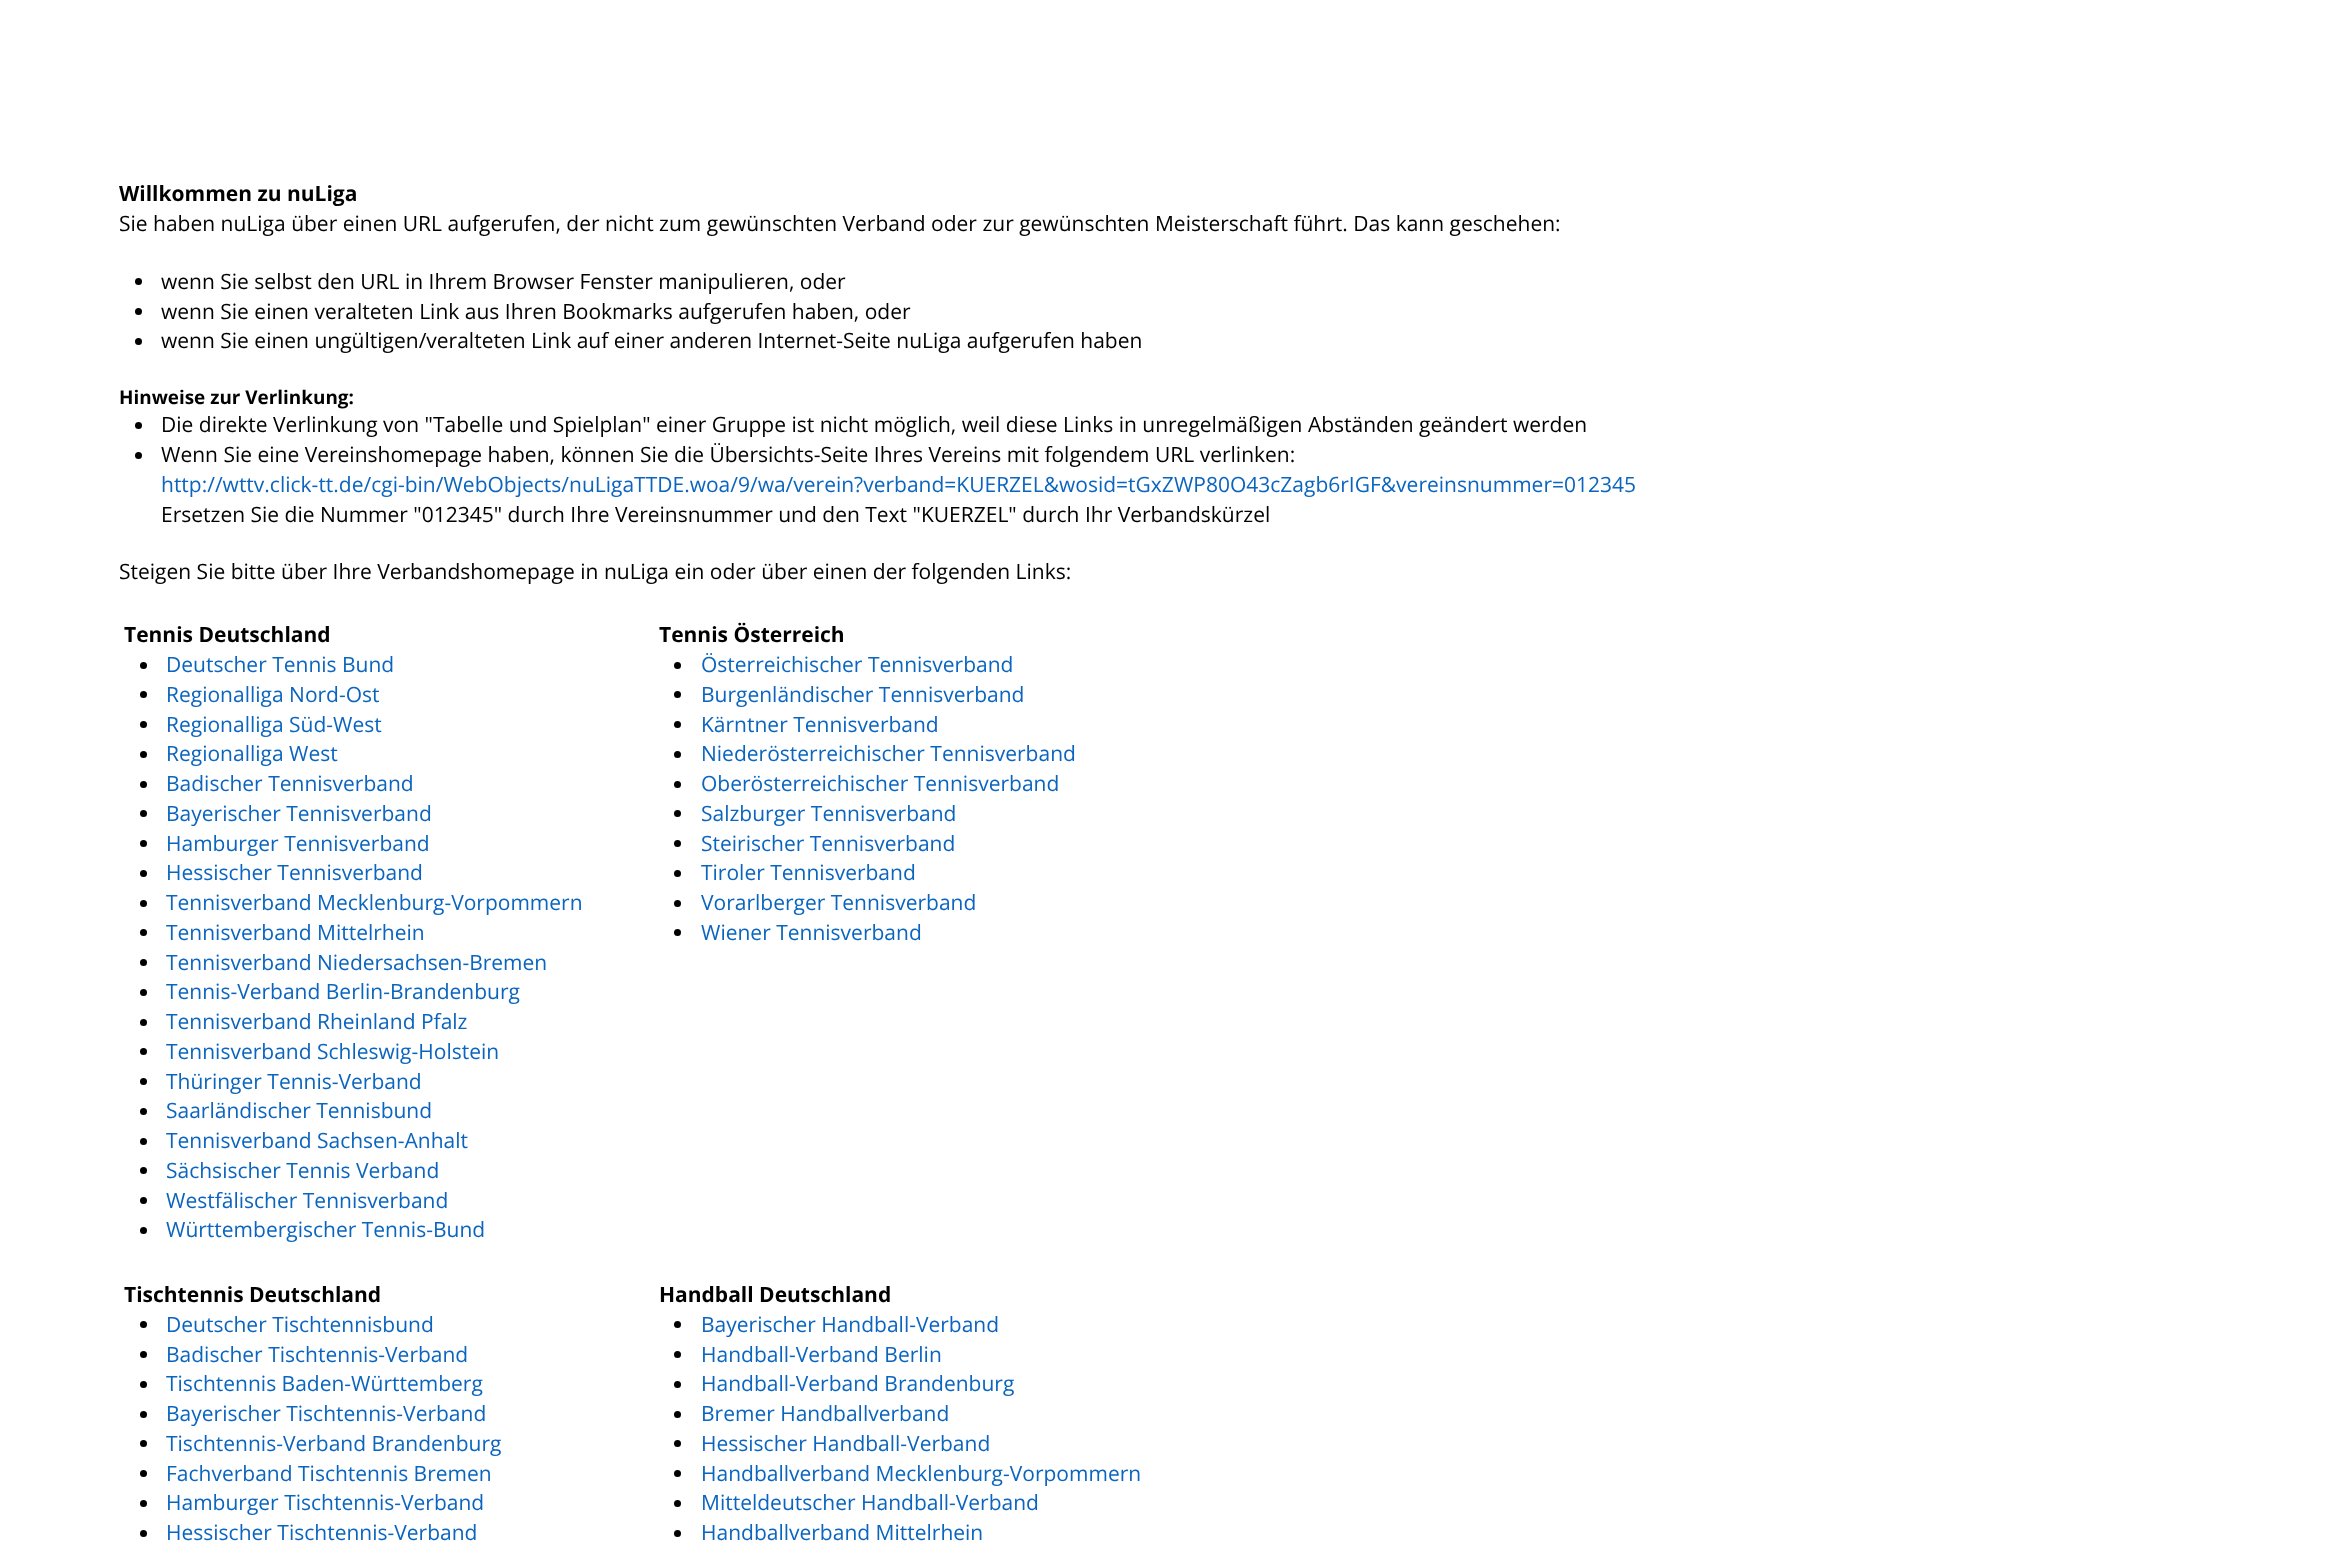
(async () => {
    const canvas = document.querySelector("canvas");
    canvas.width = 2326;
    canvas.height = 1542;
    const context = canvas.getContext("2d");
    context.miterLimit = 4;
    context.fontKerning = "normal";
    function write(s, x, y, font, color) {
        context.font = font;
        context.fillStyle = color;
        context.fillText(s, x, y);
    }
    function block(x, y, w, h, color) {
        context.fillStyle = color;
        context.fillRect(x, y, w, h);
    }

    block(0, 0, 2326, 1542, "rgb(255, 255, 255)");
    write("Willkommen zu nuLiga", 119, 201, "bold 21px Open Sans", "rgb(0, 0, 0)");
    write("Sie haben nuLiga über einen URL aufgerufen, der nicht zum gewünschten Verband oder zur gewünschten Meisterschaft führt. Das kann geschehen:", 119, 231, "21px Open Sans", "rgb(0, 0, 0)");
    context.beginPath();
    context.arc(138.5, 281.5, 3.5, 0, Math.PI * 2);
    context.fill();
    write("wenn Sie selbst den URL in Ihrem Browser Fenster manipulieren, oder", 161, 289, "21px Open Sans", "rgb(0, 0, 0)");
    context.beginPath();
    context.arc(138.5, 311.5, 3.5, 0, Math.PI * 2);
    context.fill();
    write("wenn Sie einen veralteten Link aus Ihren Bookmarks aufgerufen haben, oder", 161, 319, "21px Open Sans", "rgb(0, 0, 0)");
    context.beginPath();
    context.arc(138.5, 341.5, 3.5, 0, Math.PI * 2);
    context.fill();
    write("wenn Sie einen ungültigen/veralteten Link auf einer anderen Internet-Seite nuLiga aufgerufen haben", 161, 348, "21px Open Sans", "rgb(0, 0, 0)");
    write("Hinweise zur Verlinkung:", 119, 404, "bold 18.9px Open Sans", "rgb(0, 0, 0)");
    context.beginPath();
    context.arc(138.5, 425.5, 3.5, 0, Math.PI * 2);
    context.fill();
    write("Die direkte Verlinkung von \"Tabelle und Spielplan\" einer Gruppe ist nicht möglich, weil diese Links in unregelmäßigen Abständen geändert werden", 161, 432, "21px Open Sans", "rgb(0, 0, 0)");
    context.beginPath();
    context.arc(138.5, 455.5, 3.5, 0, Math.PI * 2);
    context.fill();
    write("Wenn Sie eine Vereinshomepage haben, können Sie die Übersichts-Seite Ihres Vereins mit folgendem URL verlinken:", 161, 462, "21px Open Sans", "rgb(0, 0, 0)");
    write("http://wttv.click-tt.de/cgi-bin/WebObjects/nuLigaTTDE.woa/9/wa/verein?verband=KUERZEL&wosid=tGxZWP80O43cZagb6rIGF&vereinsnummer=012345", 161, 492, "21px Open Sans", "rgb(11, 101, 191)");
    write("Ersetzen Sie die Nummer \"012345\" durch Ihre Vereinsnummer und den Text \"KUERZEL\" durch Ihr Verbandskürzel", 161, 522, "21px Open Sans", "rgb(0, 0, 0)");
    write("Steigen Sie bitte über Ihre Verbandshomepage in nuLiga ein oder über einen der folgenden Links:", 119, 579, "21px Open Sans", "rgb(0, 0, 0)");
    write("Tennis Deutschland", 124, 642, "bold 21px Open Sans", "rgb(0, 0, 0)");
    context.beginPath();
    context.arc(143.5, 665.5, 3.5, 0, Math.PI * 2);
    context.fill();
    write("Deutscher Tennis Bund", 166, 672, "21px Open Sans", "rgb(11, 101, 191)");
    context.fillStyle = "rgb(0, 0, 0)";
    context.beginPath();
    context.arc(143.5, 694.5, 3.5, 0, Math.PI * 2);
    context.fill();
    write("Regionalliga Nord-Ost", 166, 702, "21px Open Sans", "rgb(11, 101, 191)");
    context.fillStyle = "rgb(0, 0, 0)";
    context.beginPath();
    context.arc(143.5, 724.5, 3.5, 0, Math.PI * 2);
    context.fill();
    write("Regionalliga Süd-West", 166, 732, "21px Open Sans", "rgb(11, 101, 191)");
    context.fillStyle = "rgb(0, 0, 0)";
    context.beginPath();
    context.arc(143.5, 754.5, 3.5, 0, Math.PI * 2);
    context.fill();
    write("Regionalliga West", 166, 761, "21px Open Sans", "rgb(11, 101, 191)");
    context.fillStyle = "rgb(0, 0, 0)";
    context.beginPath();
    context.arc(143.5, 784.5, 3.5, 0, Math.PI * 2);
    context.fill();
    write("Badischer Tennisverband", 166, 791, "21px Open Sans", "rgb(11, 101, 191)");
    context.fillStyle = "rgb(0, 0, 0)";
    context.beginPath();
    context.arc(143.5, 813.5, 3.5, 0, Math.PI * 2);
    context.fill();
    write("Bayerischer Tennisverband", 166, 821, "21px Open Sans", "rgb(11, 101, 191)");
    context.fillStyle = "rgb(0, 0, 0)";
    context.beginPath();
    context.arc(143.5, 843.5, 3.5, 0, Math.PI * 2);
    context.fill();
    write("Hamburger Tennisverband", 166, 851, "21px Open Sans", "rgb(11, 101, 191)");
    context.fillStyle = "rgb(0, 0, 0)";
    context.beginPath();
    context.arc(143.5, 873.5, 3.5, 0, Math.PI * 2);
    context.fill();
    write("Hessischer Tennisverband", 166, 880, "21px Open Sans", "rgb(11, 101, 191)");
    context.fillStyle = "rgb(0, 0, 0)";
    context.beginPath();
    context.arc(143.5, 903.5, 3.5, 0, Math.PI * 2);
    context.fill();
    write("Tennisverband Mecklenburg-Vorpommern", 166, 910, "21px Open Sans", "rgb(11, 101, 191)");
    context.fillStyle = "rgb(0, 0, 0)";
    context.beginPath();
    context.arc(143.5, 932.5, 3.5, 0, Math.PI * 2);
    context.fill();
    write("Tennisverband Mittelrhein", 166, 940, "21px Open Sans", "rgb(11, 101, 191)");
    context.fillStyle = "rgb(0, 0, 0)";
    context.beginPath();
    context.arc(143.5, 962.5, 3.5, 0, Math.PI * 2);
    context.fill();
    write("Tennisverband Niedersachsen-Bremen", 166, 970, "21px Open Sans", "rgb(11, 101, 191)");
    context.fillStyle = "rgb(0, 0, 0)";
    context.beginPath();
    context.arc(143.5, 992.5, 3.5, 0, Math.PI * 2);
    context.fill();
    write("Tennis-Verband Berlin-Brandenburg", 166, 999, "21px Open Sans", "rgb(11, 101, 191)");
    context.fillStyle = "rgb(0, 0, 0)";
    context.beginPath();
    context.arc(143.5, 1022.5, 3.5, 0, Math.PI * 2);
    context.fill();
    write("Tennisverband Rheinland Pfalz", 166, 1029, "21px Open Sans", "rgb(11, 101, 191)");
    context.fillStyle = "rgb(0, 0, 0)";
    context.beginPath();
    context.arc(143.5, 1051.5, 3.5, 0, Math.PI * 2);
    context.fill();
    write("Tennisverband Schleswig-Holstein", 166, 1059, "21px Open Sans", "rgb(11, 101, 191)");
    context.fillStyle = "rgb(0, 0, 0)";
    context.beginPath();
    context.arc(143.5, 1081.5, 3.5, 0, Math.PI * 2);
    context.fill();
    write("Thüringer Tennis-Verband", 166, 1089, "21px Open Sans", "rgb(11, 101, 191)");
    context.fillStyle = "rgb(0, 0, 0)";
    context.beginPath();
    context.arc(143.5, 1111.5, 3.5, 0, Math.PI * 2);
    context.fill();
    write("Saarländischer Tennisbund", 166, 1118, "21px Open Sans", "rgb(11, 101, 191)");
    context.fillStyle = "rgb(0, 0, 0)";
    context.beginPath();
    context.arc(143.5, 1141.5, 3.5, 0, Math.PI * 2);
    context.fill();
    write("Tennisverband Sachsen-Anhalt", 166, 1148, "21px Open Sans", "rgb(11, 101, 191)");
    context.fillStyle = "rgb(0, 0, 0)";
    context.beginPath();
    context.arc(143.5, 1170.5, 3.5, 0, Math.PI * 2);
    context.fill();
    write("Sächsischer Tennis Verband", 166, 1178, "21px Open Sans", "rgb(11, 101, 191)");
    context.fillStyle = "rgb(0, 0, 0)";
    context.beginPath();
    context.arc(143.5, 1200.5, 3.5, 0, Math.PI * 2);
    context.fill();
    write("Westfälischer Tennisverband", 166, 1208, "21px Open Sans", "rgb(11, 101, 191)");
    context.fillStyle = "rgb(0, 0, 0)";
    context.beginPath();
    context.arc(143.5, 1230.5, 3.5, 0, Math.PI * 2);
    context.fill();
    write("Württembergischer Tennis-Bund", 166, 1237, "21px Open Sans", "rgb(11, 101, 191)");
    write("Tennis Österreich", 659, 642, "bold 21px Open Sans", "rgb(0, 0, 0)");
    context.beginPath();
    context.arc(677.5, 665.5, 3.5, 0, Math.PI * 2);
    context.fill();
    write("Österreichischer Tennisverband", 701, 672, "21px Open Sans", "rgb(11, 101, 191)");
    context.fillStyle = "rgb(0, 0, 0)";
    context.beginPath();
    context.arc(677.5, 694.5, 3.5, 0, Math.PI * 2);
    context.fill();
    write("Burgenländischer Tennisverband", 701, 702, "21px Open Sans", "rgb(11, 101, 191)");
    context.fillStyle = "rgb(0, 0, 0)";
    context.beginPath();
    context.arc(677.5, 724.5, 3.5, 0, Math.PI * 2);
    context.fill();
    write("Kärntner Tennisverband", 701, 732, "21px Open Sans", "rgb(11, 101, 191)");
    context.fillStyle = "rgb(0, 0, 0)";
    context.beginPath();
    context.arc(677.5, 754.5, 3.5, 0, Math.PI * 2);
    context.fill();
    write("Niederösterreichischer Tennisverband", 701, 761, "21px Open Sans", "rgb(11, 101, 191)");
    context.fillStyle = "rgb(0, 0, 0)";
    context.beginPath();
    context.arc(677.5, 784.5, 3.5, 0, Math.PI * 2);
    context.fill();
    write("Oberösterreichischer Tennisverband", 701, 791, "21px Open Sans", "rgb(11, 101, 191)");
    context.fillStyle = "rgb(0, 0, 0)";
    context.beginPath();
    context.arc(677.5, 813.5, 3.5, 0, Math.PI * 2);
    context.fill();
    write("Salzburger Tennisverband", 701, 821, "21px Open Sans", "rgb(11, 101, 191)");
    context.fillStyle = "rgb(0, 0, 0)";
    context.beginPath();
    context.arc(677.5, 843.5, 3.5, 0, Math.PI * 2);
    context.fill();
    write("Steirischer Tennisverband", 701, 851, "21px Open Sans", "rgb(11, 101, 191)");
    context.fillStyle = "rgb(0, 0, 0)";
    context.beginPath();
    context.arc(677.5, 873.5, 3.5, 0, Math.PI * 2);
    context.fill();
    write("Tiroler Tennisverband", 701, 880, "21px Open Sans", "rgb(11, 101, 191)");
    context.fillStyle = "rgb(0, 0, 0)";
    context.beginPath();
    context.arc(677.5, 903.5, 3.5, 0, Math.PI * 2);
    context.fill();
    write("Vorarlberger Tennisverband", 701, 910, "21px Open Sans", "rgb(11, 101, 191)");
    context.fillStyle = "rgb(0, 0, 0)";
    context.beginPath();
    context.arc(677.5, 932.5, 3.5, 0, Math.PI * 2);
    context.fill();
    write("Wiener Tennisverband", 701, 940, "21px Open Sans", "rgb(11, 101, 191)");
    write("Tischtennis Deutschland", 124, 1302, "bold 21px Open Sans", "rgb(0, 0, 0)");
    context.beginPath();
    context.arc(143.5, 1324.5, 3.5, 0, Math.PI * 2);
    context.fill();
    write("Deutscher Tischtennisbund", 166, 1332, "21px Open Sans", "rgb(11, 101, 191)");
    context.fillStyle = "rgb(0, 0, 0)";
    context.beginPath();
    context.arc(143.5, 1354.5, 3.5, 0, Math.PI * 2);
    context.fill();
    write("Badischer Tischtennis-Verband", 166, 1362, "21px Open Sans", "rgb(11, 101, 191)");
    context.fillStyle = "rgb(0, 0, 0)";
    context.beginPath();
    context.arc(143.5, 1384.5, 3.5, 0, Math.PI * 2);
    context.fill();
    write("Tischtennis Baden-Württemberg", 166, 1391, "21px Open Sans", "rgb(11, 101, 191)");
    context.fillStyle = "rgb(0, 0, 0)";
    context.beginPath();
    context.arc(143.5, 1414.5, 3.5, 0, Math.PI * 2);
    context.fill();
    write("Bayerischer Tischtennis-Verband", 166, 1421, "21px Open Sans", "rgb(11, 101, 191)");
    context.fillStyle = "rgb(0, 0, 0)";
    context.beginPath();
    context.arc(143.5, 1443.5, 3.5, 0, Math.PI * 2);
    context.fill();
    write("Tischtennis-Verband Brandenburg", 166, 1451, "21px Open Sans", "rgb(11, 101, 191)");
    context.fillStyle = "rgb(0, 0, 0)";
    context.beginPath();
    context.arc(143.5, 1473.5, 3.5, 0, Math.PI * 2);
    context.fill();
    write("Fachverband Tischtennis Bremen", 166, 1481, "21px Open Sans", "rgb(11, 101, 191)");
    context.fillStyle = "rgb(0, 0, 0)";
    context.beginPath();
    context.arc(143.5, 1503.5, 3.5, 0, Math.PI * 2);
    context.fill();
    write("Hamburger Tischtennis-Verband", 166, 1510, "21px Open Sans", "rgb(11, 101, 191)");
    context.fillStyle = "rgb(0, 0, 0)";
    context.beginPath();
    context.arc(143.5, 1533.5, 3.5, 0, Math.PI * 2);
    context.fill();
    write("Hessischer Tischtennis-Verband", 166, 1540, "21px Open Sans", "rgb(11, 101, 191)");
    write("Handball Deutschland", 659, 1302, "bold 21px Open Sans", "rgb(0, 0, 0)");
    context.beginPath();
    context.arc(677.5, 1324.5, 3.5, 0, Math.PI * 2);
    context.fill();
    write("Bayerischer Handball-Verband", 701, 1332, "21px Open Sans", "rgb(11, 101, 191)");
    context.fillStyle = "rgb(0, 0, 0)";
    context.beginPath();
    context.arc(677.5, 1354.5, 3.5, 0, Math.PI * 2);
    context.fill();
    write("Handball-Verband Berlin", 701, 1362, "21px Open Sans", "rgb(11, 101, 191)");
    context.fillStyle = "rgb(0, 0, 0)";
    context.beginPath();
    context.arc(677.5, 1384.5, 3.5, 0, Math.PI * 2);
    context.fill();
    write("Handball-Verband Brandenburg", 701, 1391, "21px Open Sans", "rgb(11, 101, 191)");
    context.fillStyle = "rgb(0, 0, 0)";
    context.beginPath();
    context.arc(677.5, 1414.5, 3.5, 0, Math.PI * 2);
    context.fill();
    write("Bremer Handballverband", 701, 1421, "21px Open Sans", "rgb(11, 101, 191)");
    context.fillStyle = "rgb(0, 0, 0)";
    context.beginPath();
    context.arc(677.5, 1443.5, 3.5, 0, Math.PI * 2);
    context.fill();
    write("Hessischer Handball-Verband", 701, 1451, "21px Open Sans", "rgb(11, 101, 191)");
    context.fillStyle = "rgb(0, 0, 0)";
    context.beginPath();
    context.arc(677.5, 1473.5, 3.5, 0, Math.PI * 2);
    context.fill();
    write("Handballverband Mecklenburg-Vorpommern", 701, 1481, "21px Open Sans", "rgb(11, 101, 191)");
    context.fillStyle = "rgb(0, 0, 0)";
    context.beginPath();
    context.arc(677.5, 1503.5, 3.5, 0, Math.PI * 2);
    context.fill();
    write("Mitteldeutscher Handball-Verband", 701, 1510, "21px Open Sans", "rgb(11, 101, 191)");
    context.fillStyle = "rgb(0, 0, 0)";
    context.beginPath();
    context.arc(677.5, 1533.5, 3.5, 0, Math.PI * 2);
    context.fill();
    write("Handballverband Mittelrhein", 701, 1540, "21px Open Sans", "rgb(11, 101, 191)");
})();
